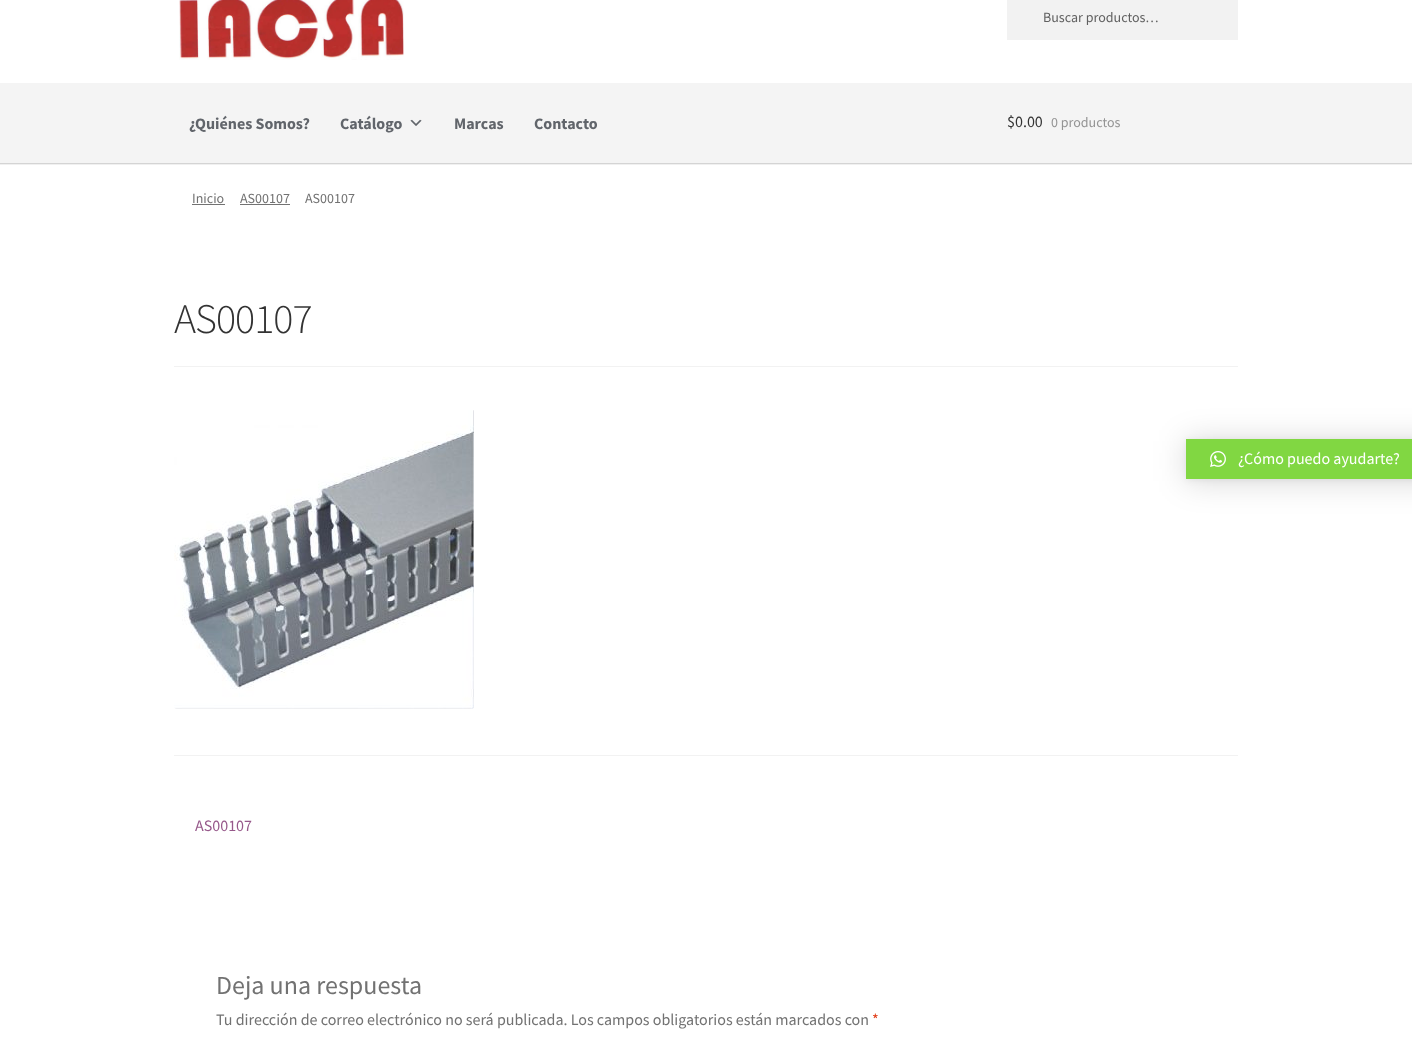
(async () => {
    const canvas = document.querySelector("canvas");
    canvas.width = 1412;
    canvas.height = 1037;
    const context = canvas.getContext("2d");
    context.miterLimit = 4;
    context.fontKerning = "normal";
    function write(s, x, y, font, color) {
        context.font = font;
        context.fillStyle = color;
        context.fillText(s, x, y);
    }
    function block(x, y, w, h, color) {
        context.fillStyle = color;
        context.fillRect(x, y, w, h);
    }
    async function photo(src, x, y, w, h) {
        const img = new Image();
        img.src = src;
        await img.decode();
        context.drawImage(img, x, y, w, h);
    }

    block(0, 0, 1412, 1037, "rgb(255, 255, 255)");
    block(0, 164, 1412, 1, "rgb(240, 240, 240)");
    await photo("media/1.png", 179, 0, 225, 60);
    block(1007, 0, 231, 40, "rgb(242, 242, 242)");
    write("Buscar productos…", 1043, 22, "14px Source Sans Pro", "rgb(97, 97, 97)");
    block(0, 83, 1412, 80, "rgb(244, 244, 244)");
    block(0, 163, 1412, 1, "rgb(212, 212, 212)");
    write("¿Quiénes Somos?", 189, 129, "bold 16px Source Sans Pro", "rgb(97, 101, 107)");
    write("Catálogo", 340, 129, "bold 16px Source Sans Pro", "rgb(97, 101, 107)");
    await photo("media/2.png", 410, 119, 12, 7);
    write("Marcas", 454, 129, "bold 16px Source Sans Pro", "rgb(97, 101, 107)");
    write("Contacto", 534, 129, "bold 16px Source Sans Pro", "rgb(97, 101, 107)");
    write("$0.00", 1007, 127, "16px Source Sans Pro", "rgb(51, 51, 51)");
    write("0 productos", 1051, 127, "14px Source Sans Pro", "rgb(148, 148, 148)");
    write("Inicio", 192, 203, "14px Source Sans Pro", "rgb(114, 114, 114)");
    block(192, 204, 33, 1, "rgb(114, 114, 114)");
    write("AS00107", 240, 203, "14px Source Sans Pro", "rgb(114, 114, 114)");
    block(240, 204, 50, 1, "rgb(114, 114, 114)");
    write("AS00107", 305, 203, "14px Source Sans Pro", "rgb(114, 114, 114)");
    block(174, 366, 1064, 1, "rgb(242, 242, 242)");
    context.letterSpacing = "-1px";
    write("AS00107", 174, 333, "300 42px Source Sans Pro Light", "rgb(51, 51, 51)");
    await photo("media/3.png", 174, 410, 300, 299);
    block(174, 755, 1064, 1, "rgb(242, 242, 242)");
    context.letterSpacing = "0px";
    write("AS00107", 195, 831, "16px Source Sans Pro", "rgb(150, 88, 138)");
    write("Deja una respuesta", 216, 994, "26px Source Sans Pro", "rgb(114, 114, 114)");
    write("Tu dirección de correo electrónico no será publicada. Los campos obligatorios están marcados con", 216, 1025, "16px Source Sans Pro", "rgb(114, 114, 114)");
    write("*", 872, 1025, "16px Source Sans Pro", "rgb(226, 64, 28)");
    context.fillStyle = "rgba(0, 0, 0, 0.16)";
    context.filter = "blur(16px)";
    context.beginPath();
    context.rect(1186, 441, 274, 40);
    context.fill();
    context.filter = "none";
    context.fillStyle = "rgba(0, 0, 0, 0.06)";
    context.filter = "blur(3px)";
    context.beginPath();
    context.rect(1186, 440, 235, 40);
    context.fill();
    context.filter = "none";
    block(1186, 439, 226, 40, "rgb(129, 215, 66)");
    await photo("media/4.png", 1210, 451, 16, 16);
    write("¿Cómo puedo ayudarte?", 1238, 464, "16px Source Sans Pro", "rgb(255, 255, 255)");
})();
